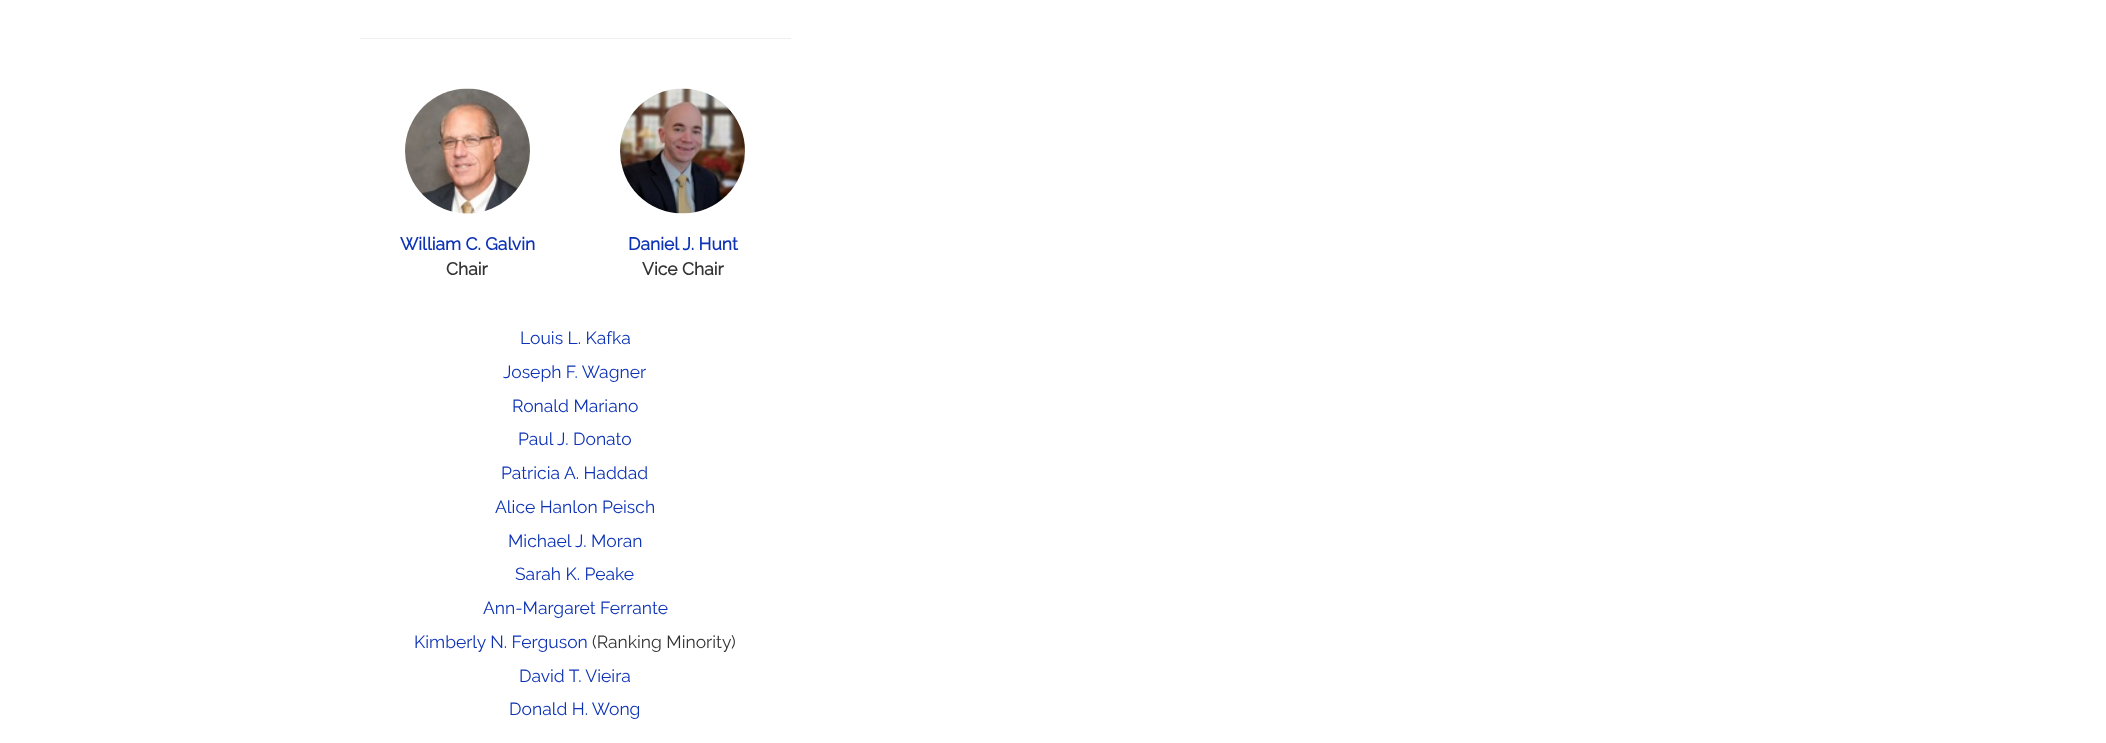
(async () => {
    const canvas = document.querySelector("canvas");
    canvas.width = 2106;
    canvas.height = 743;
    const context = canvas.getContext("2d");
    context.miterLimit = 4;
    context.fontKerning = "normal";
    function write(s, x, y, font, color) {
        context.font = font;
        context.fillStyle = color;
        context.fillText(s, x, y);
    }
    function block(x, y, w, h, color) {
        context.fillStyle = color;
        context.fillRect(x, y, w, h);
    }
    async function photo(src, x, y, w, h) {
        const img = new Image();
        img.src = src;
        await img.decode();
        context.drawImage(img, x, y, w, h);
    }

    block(0, 0, 2106, 743, "rgb(255, 255, 255)");
    block(360, 38, 431, 1, "rgb(238, 238, 238)");
    await photo("media/1.png", 405, 88, 125, 126);
    write("William C. Galvin", 400, 250, "bold 17.5px Raleway", "rgb(13, 50, 182)");
    write("Chair", 446, 275, "bold 17.5px Raleway", "rgb(51, 51, 51)");
    await photo("media/2.png", 620, 88, 125, 126);
    write("Daniel J. Hunt", 628, 250, "bold 17.5px Raleway", "rgb(13, 50, 182)");
    write("Vice Chair", 642, 275, "bold 17.5px Raleway", "rgb(51, 51, 51)");
    write("Louis L. Kafka", 520, 344, "100 17.5px Raleway", "rgb(13, 50, 182)");
    write("Joseph F. Wagner", 503, 378, "100 17.5px Raleway", "rgb(13, 50, 182)");
    write("Ronald Mariano", 512, 412, "100 17.5px Raleway", "rgb(13, 50, 182)");
    write("Paul J. Donato", 518, 445, "100 17.5px Raleway", "rgb(13, 50, 182)");
    write("Patricia A. Haddad", 501, 479, "100 17.5px Raleway", "rgb(13, 50, 182)");
    write("Alice Hanlon Peisch", 495, 513, "100 17.5px Raleway", "rgb(13, 50, 182)");
    write("Michael J. Moran", 508, 547, "100 17.5px Raleway", "rgb(13, 50, 182)");
    write("Sarah K. Peake", 515, 580, "100 17.5px Raleway", "rgb(13, 50, 182)");
    write("Ann-Margaret Ferrante", 483, 614, "100 17.5px Raleway", "rgb(13, 50, 182)");
    write("Kimberly N. Ferguson", 414, 648, "100 17.5px Raleway", "rgb(13, 50, 182)");
    write("(Ranking Minority)", 592, 648, "100 17.5px Raleway", "rgb(51, 51, 51)");
    write("David T. Vieira", 519, 682, "100 17.5px Raleway", "rgb(13, 50, 182)");
    write("Donald H. Wong", 509, 715, "100 17.5px Raleway", "rgb(13, 50, 182)");
})();
